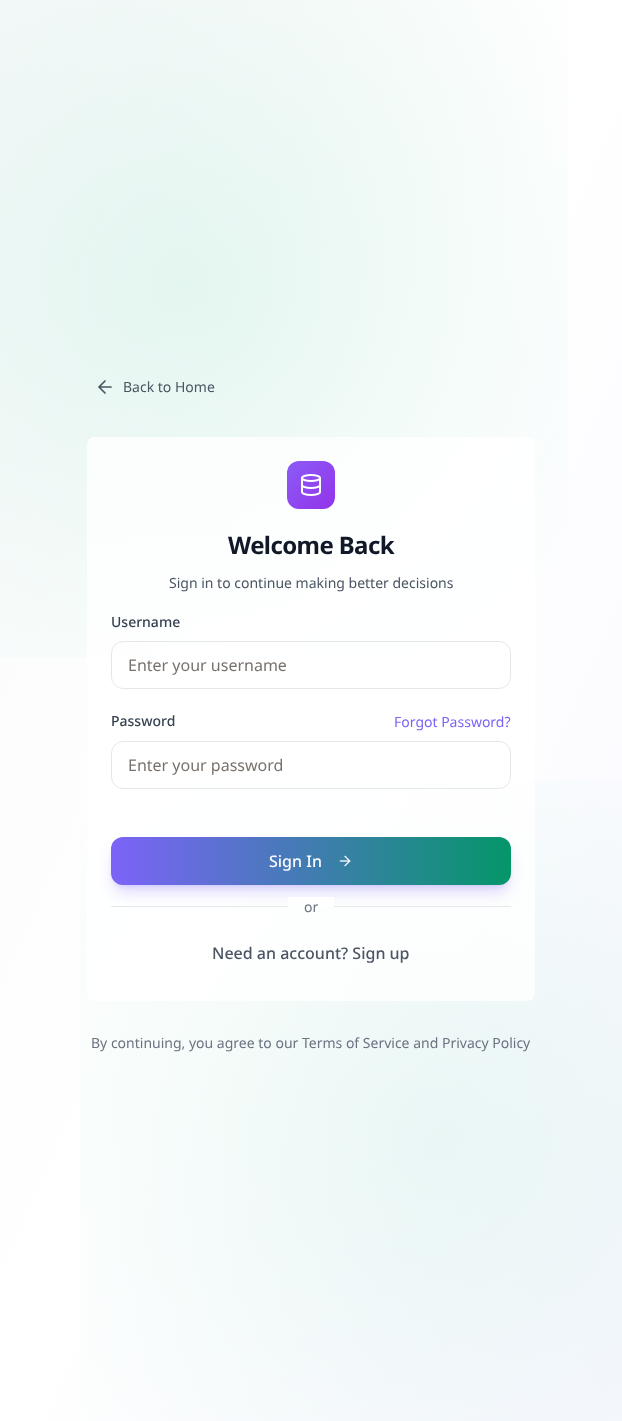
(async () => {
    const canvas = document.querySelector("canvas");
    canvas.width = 622;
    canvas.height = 1421;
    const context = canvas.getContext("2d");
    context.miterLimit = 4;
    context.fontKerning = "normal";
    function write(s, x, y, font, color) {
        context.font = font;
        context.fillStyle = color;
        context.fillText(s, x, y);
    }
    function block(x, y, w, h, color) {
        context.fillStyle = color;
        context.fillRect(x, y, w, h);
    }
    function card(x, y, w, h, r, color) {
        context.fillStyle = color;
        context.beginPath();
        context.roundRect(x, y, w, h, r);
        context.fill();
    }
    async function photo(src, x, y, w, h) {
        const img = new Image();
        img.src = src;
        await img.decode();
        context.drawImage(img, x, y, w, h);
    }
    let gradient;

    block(0, 0, 622, 1421, "rgb(255, 255, 255)");
    gradient = context.createLinearGradient(-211, 482, 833, 939);
    gradient.addColorStop(0, "rgb(249, 250, 251)");
    gradient.addColorStop(0.5, "rgb(255, 255, 255)");
    gradient.addColorStop(1, "rgb(249, 248, 255)");
    context.fillStyle = gradient;
    context.fillRect(0, 0, 622, 1421);
    gradient = context.createRadialGradient(187, 284, 0, 187, 284, 1217);
    gradient.addColorStop(0, "rgba(16, 185, 129, 0.1)");
    gradient.addColorStop(0.4, "rgba(16, 185, 129, 0)");
    context.fillStyle = gradient;
    context.fillRect(0, 0, 568, 658);
    context.beginPath();
    context.moveTo(105, 393);
    context.lineTo(99, 387);
    context.lineTo(105, 381);
    context.moveTo(111, 387);
    context.lineTo(99, 387);
    context.strokeStyle = "rgb(75, 85, 99)";
    context.lineWidth = 1.7;
    context.lineCap = "round";
    context.lineJoin = "round";
    context.stroke();
    write("Back to Home", 123, 392, "14px Noto Sans", "rgb(75, 85, 99)");
    gradient = context.createRadialGradient(435, 1137, 0, 435, 1137, 1217);
    gradient.addColorStop(0, "rgba(16, 185, 129, 0.08)");
    gradient.addColorStop(0.4, "rgba(16, 185, 129, 0)");
    context.fillStyle = gradient;
    context.fillRect(80, 781, 542, 640);
    card(87, 437, 448, 564, 8, "rgba(255, 255, 255, 0.8)");
    gradient = context.createLinearGradient(287, 461, 335, 509);
    gradient.addColorStop(0, "rgb(139, 92, 246)");
    gradient.addColorStop(1, "rgb(147, 51, 234)");
    context.fillStyle = gradient;
    context.beginPath();
    context.roundRect(287, 461, 48, 48, 12);
    context.fill();
    await photo("media/1.png", 301, 474, 20, 22);
    context.letterSpacing = "-0.6px";
    write("Welcome Back", 228, 554, "bold 24px Noto Sans", "rgb(17, 24, 39)");
    context.letterSpacing = "0px";
    write("Sign in to continue making better decisions", 169, 588, "14px Noto Sans", "rgb(75, 85, 99)");
    write("Username", 111, 627, "500 14px Noto Sans", "rgb(55, 65, 81)");
    context.beginPath();
    context.roundRect(111.5, 641.5, 399, 47, 11.5);
    context.strokeStyle = "rgb(229, 231, 235)";
    context.lineWidth = 1;
    context.lineJoin = "miter";
    context.stroke();
    write("Enter your username", 128, 671, "16px Noto Sans", "rgb(120, 113, 108)");
    write("Password", 111, 726, "500 14px Noto Sans", "rgb(55, 65, 81)");
    write("Forgot Password?", 394, 727, "14px Noto Sans", "rgb(124, 99, 248)");
    context.beginPath();
    context.roundRect(111.5, 741.5, 399, 47, 11.5);
    context.stroke();
    write("Enter your password", 128, 771, "16px Noto Sans", "rgb(120, 113, 108)");
    context.fillStyle = "rgba(124, 99, 248, 0.25)";
    context.filter = "blur(3px)";
    context.beginPath();
    context.roundRect(115, 845, 392, 40, 8);
    context.fill();
    context.filter = "none";
    context.filter = "blur(7.5px)";
    context.beginPath();
    context.roundRect(114, 850, 394, 42, 9);
    context.fill();
    context.filter = "none";
    gradient = context.createLinearGradient(111, 861, 511, 861);
    gradient.addColorStop(0, "rgb(124, 99, 248)");
    gradient.addColorStop(1, "rgb(5, 150, 105)");
    context.fillStyle = gradient;
    context.beginPath();
    context.roundRect(111, 837, 400, 48, 12);
    context.fill();
    write("Sign In", 269, 867, "500 16px Noto Sans", "rgb(250, 250, 255)");
    await photo("media/2.png", 339, 855, 12, 12);
    block(111, 906, 400, 1, "rgb(229, 231, 235)");
    block(288, 897, 46, 10, "rgb(255, 255, 255)");
    write("or", 304, 912, "14px Noto Sans", "rgb(107, 114, 128)");
    write("Need an account? Sign up", 212, 959, "500 16px Noto Sans", "rgb(75, 85, 99)");
    write("By continuing, you agree to our Terms of Service and Privacy Policy", 91, 1048, "14px Noto Sans", "rgb(107, 114, 128)");
})();
